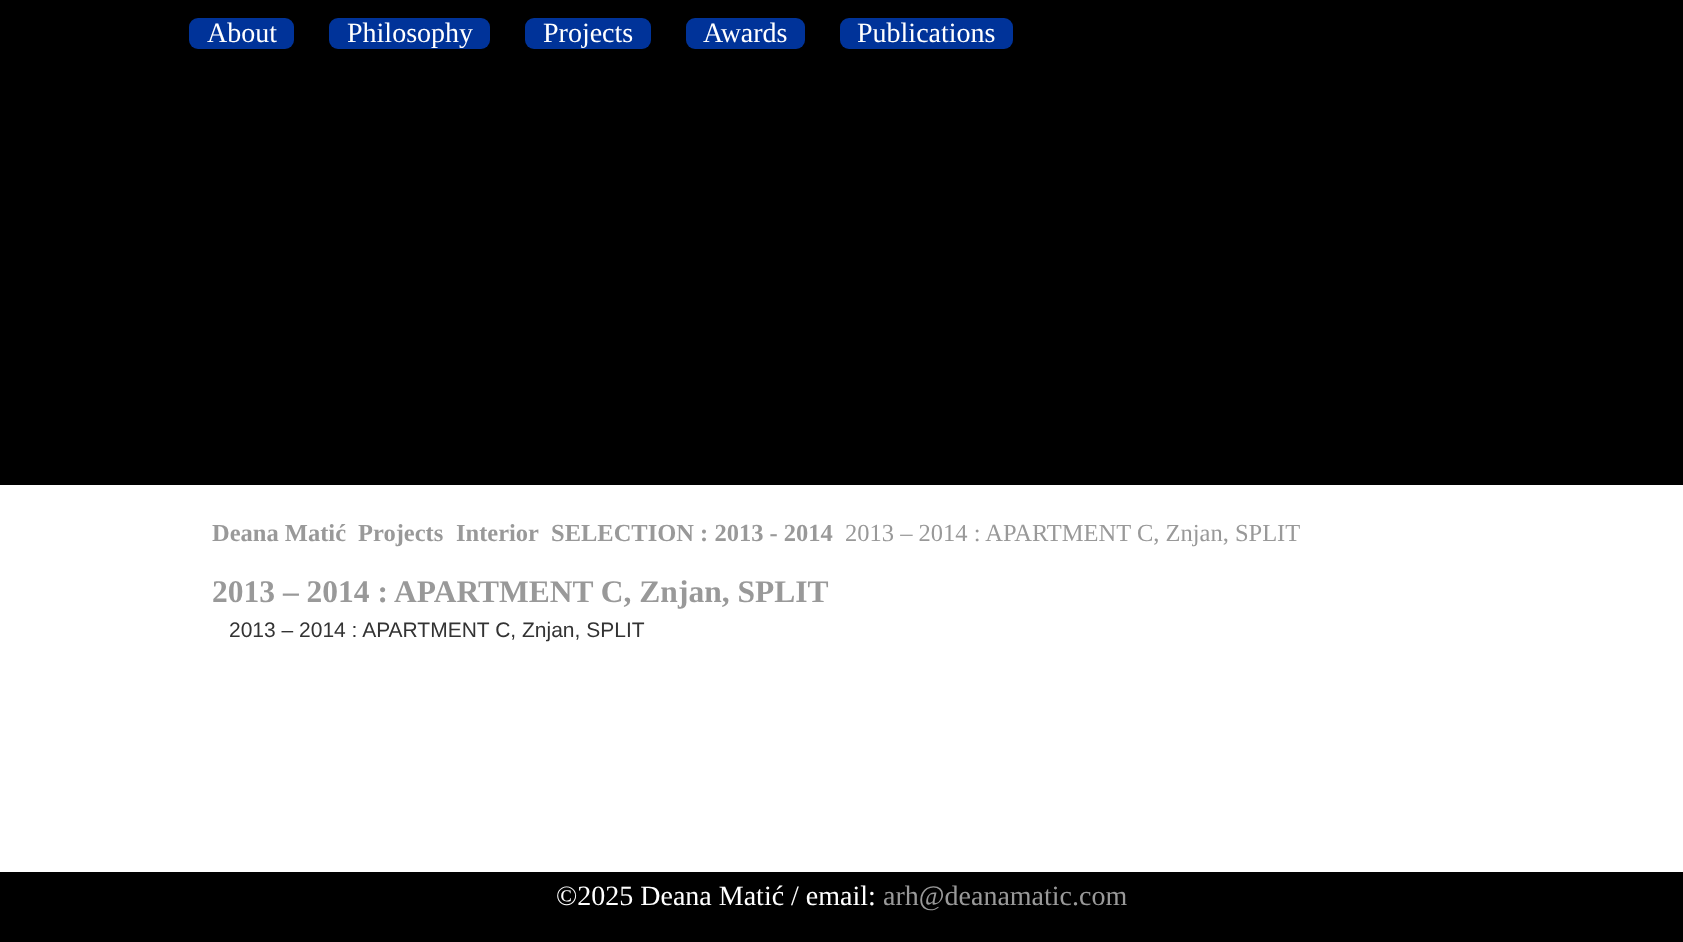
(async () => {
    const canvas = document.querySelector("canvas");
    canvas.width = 1683;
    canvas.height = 942;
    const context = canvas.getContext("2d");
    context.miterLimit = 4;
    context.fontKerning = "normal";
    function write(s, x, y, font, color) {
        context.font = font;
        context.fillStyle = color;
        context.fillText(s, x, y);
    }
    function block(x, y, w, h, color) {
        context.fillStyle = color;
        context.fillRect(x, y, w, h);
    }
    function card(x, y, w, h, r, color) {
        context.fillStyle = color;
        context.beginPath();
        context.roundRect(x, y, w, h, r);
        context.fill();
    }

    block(0, 0, 1683, 942, "rgb(255, 255, 255)");
    block(0, 0, 1683, 485, "rgb(0, 0, 0)");
    card(189, 18, 105, 31, 9, "rgb(0, 51, 153)");
    write("About", 207, 42, "28px Liberation Serif", "rgb(255, 255, 255)");
    card(329, 18, 161, 31, 9, "rgb(0, 51, 153)");
    write("Philosophy", 347, 42, "28px Liberation Serif", "rgb(255, 255, 255)");
    card(525, 18, 126, 31, 9, "rgb(0, 51, 153)");
    write("Projects", 543, 42, "28px Liberation Serif", "rgb(255, 255, 255)");
    card(686, 18, 119, 31, 9, "rgb(0, 51, 153)");
    write("Awards", 703, 42, "28px Liberation Serif", "rgb(255, 255, 255)");
    card(840, 18, 173, 31, 9, "rgb(0, 51, 153)");
    write("Publications", 857, 42, "28px Liberation Serif", "rgb(255, 255, 255)");
    write("Deana Matić", 212, 541, "bold 24.5px Liberation Serif", "rgb(153, 153, 153)");
    write("Projects", 358, 541, "bold 24.5px Liberation Serif", "rgb(153, 153, 153)");
    write("Interior", 456, 541, "bold 24.5px Liberation Serif", "rgb(153, 153, 153)");
    write("SELECTION : 2013 - 2014", 551, 541, "bold 24.5px Liberation Serif", "rgb(153, 153, 153)");
    write("2013 – 2014 : APARTMENT C, Znjan, SPLIT", 845, 541, "24.5px Liberation Serif", "rgb(153, 153, 153)");
    write("2013 – 2014 : APARTMENT C, Znjan, SPLIT", 212, 602, "bold 31.5px Liberation Serif", "rgb(153, 153, 153)");
    write("2013 – 2014 : APARTMENT C, Znjan, SPLIT", 229, 637, "21px Liberation Sans", "rgb(51, 51, 51)");
    block(0, 872, 1683, 70, "rgb(0, 0, 0)");
    write("©2025 Deana Matić / email:", 556, 905, "28px Liberation Serif", "rgb(255, 255, 255)");
    write("arh@deanamatic.com", 883, 905, "28px Liberation Serif", "rgb(153, 153, 153)");
})();
